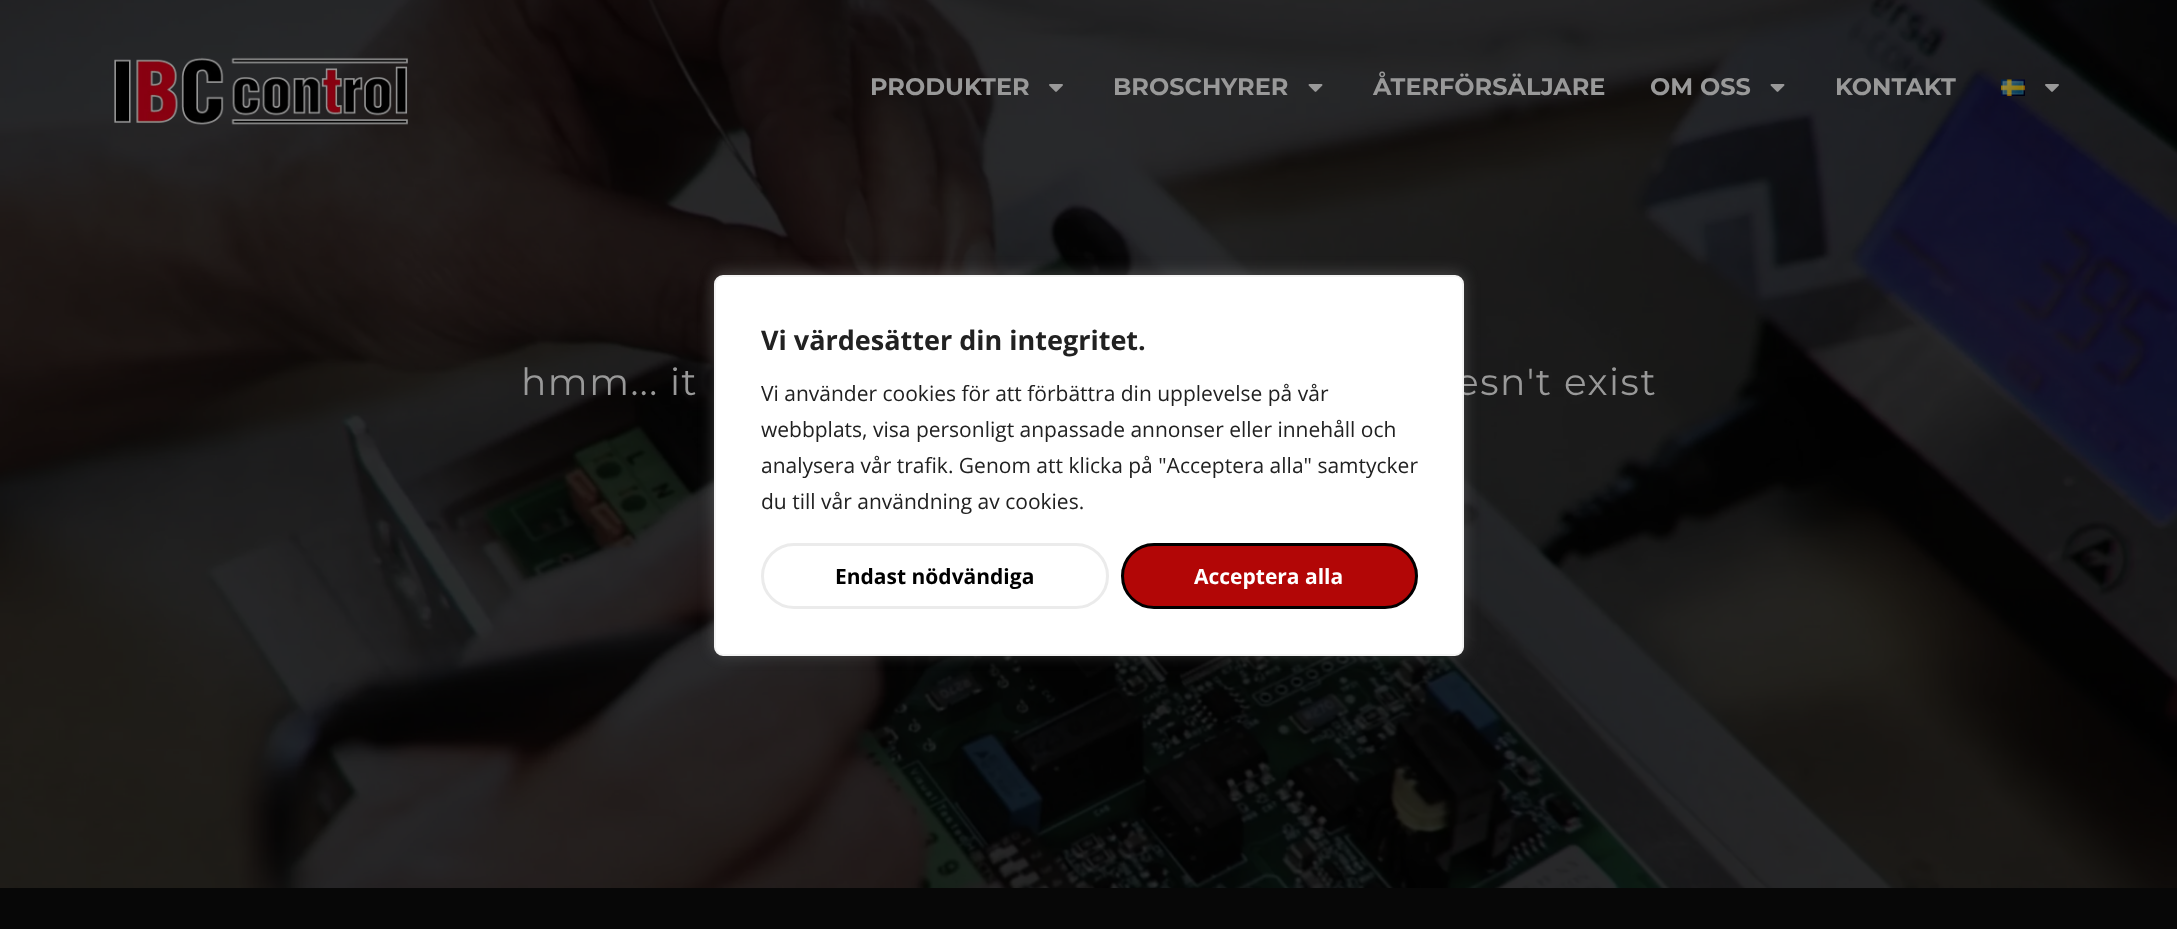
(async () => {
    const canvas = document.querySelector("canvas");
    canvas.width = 2177;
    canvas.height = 929;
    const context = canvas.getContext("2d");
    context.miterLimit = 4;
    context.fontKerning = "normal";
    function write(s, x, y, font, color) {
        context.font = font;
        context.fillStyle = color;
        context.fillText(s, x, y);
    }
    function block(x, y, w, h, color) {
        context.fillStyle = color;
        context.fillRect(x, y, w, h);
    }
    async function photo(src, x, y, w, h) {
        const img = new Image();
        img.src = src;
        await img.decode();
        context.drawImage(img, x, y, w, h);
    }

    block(0, 0, 2177, 929, "rgb(255, 255, 255)");
    await photo("media/7.png", 0, 0, 2177, 888);
    await photo("media/1.png", 114, 57, 294, 68);
    write("PRODUKTER", 870, 95, "bold 24px Montserrat", "rgb(153, 153, 153)");
    await photo("media/2.png", 1049, 84, 14, 8);
    write("BROSCHYRER", 1113, 95, "bold 24px Montserrat", "rgb(153, 153, 153)");
    await photo("media/3.png", 1308, 84, 15, 8);
    write("ÅTERFÖRSÄLJARE", 1373, 95, "bold 24px Montserrat", "rgb(153, 153, 153)");
    write("OM OSS", 1650, 95, "bold 24px Montserrat", "rgb(153, 153, 153)");
    await photo("media/4.png", 1770, 84, 15, 8);
    write("KONTAKT", 1835, 95, "bold 24px Montserrat", "rgb(153, 153, 153)");
    await photo("media/5.png", 2001, 79, 24, 17);
    await photo("media/6.png", 2045, 84, 14, 8);
    context.letterSpacing = "1.5px";
    write("hmm... it", 521, 395, "37.5px Montserrat", "rgb(153, 153, 153)");
    write("esn't exist", 1456, 395, "37.5px Montserrat", "rgb(153, 153, 153)");
    block(0, 888, 2177, 41, "rgb(7, 7, 7)");
    context.fillStyle = "rgba(172, 171, 171, 0.3)";
    context.filter = "blur(7.5px)";
    context.beginPath();
    context.roundRect(714, 273, 750, 381, 9);
    context.fill();
    context.filter = "none";
    context.fillStyle = "rgb(255, 255, 255)";
    context.beginPath();
    context.roundRect(715, 276, 748, 379, 8);
    context.fill();
    context.strokeStyle = "rgb(244, 244, 244)";
    context.lineWidth = 2;
    context.stroke();
    context.letterSpacing = "0px";
    write("Vi värdesätter din integritet.", 761, 350, "bold 27px Open Sans", "rgb(33, 33, 33)");
    write("Vi använder cookies för att förbättra din upplevelse på vår", 761, 401, "21px Open Sans", "rgb(33, 33, 33)");
    write("webbplats, visa personligt anpassade annonser eller innehåll och", 761, 437, "21px Open Sans", "rgb(33, 33, 33)");
    write("analysera vår trafik. Genom att klicka på \"Acceptera alla\" samtycker", 761, 473, "21px Open Sans", "rgb(33, 33, 33)");
    write("du till vår användning av cookies.", 761, 509, "21px Open Sans", "rgb(33, 33, 33)");
    context.beginPath();
    context.roundRect(762.5, 544.5, 345, 63, 31.5);
    context.strokeStyle = "rgb(235, 235, 235)";
    context.lineWidth = 3;
    context.stroke();
    write("Endast nödvändiga", 835, 584, "bold 21px Open Sans", "rgb(0, 0, 0)");
    context.fillStyle = "rgb(178, 6, 6)";
    context.beginPath();
    context.roundRect(1122.5, 544.5, 294, 63, 31.5);
    context.fill();
    context.strokeStyle = "rgb(0, 0, 0)";
    context.stroke();
    write("Acceptera alla", 1194, 584, "bold 21px Open Sans", "rgb(255, 255, 255)");
})();
